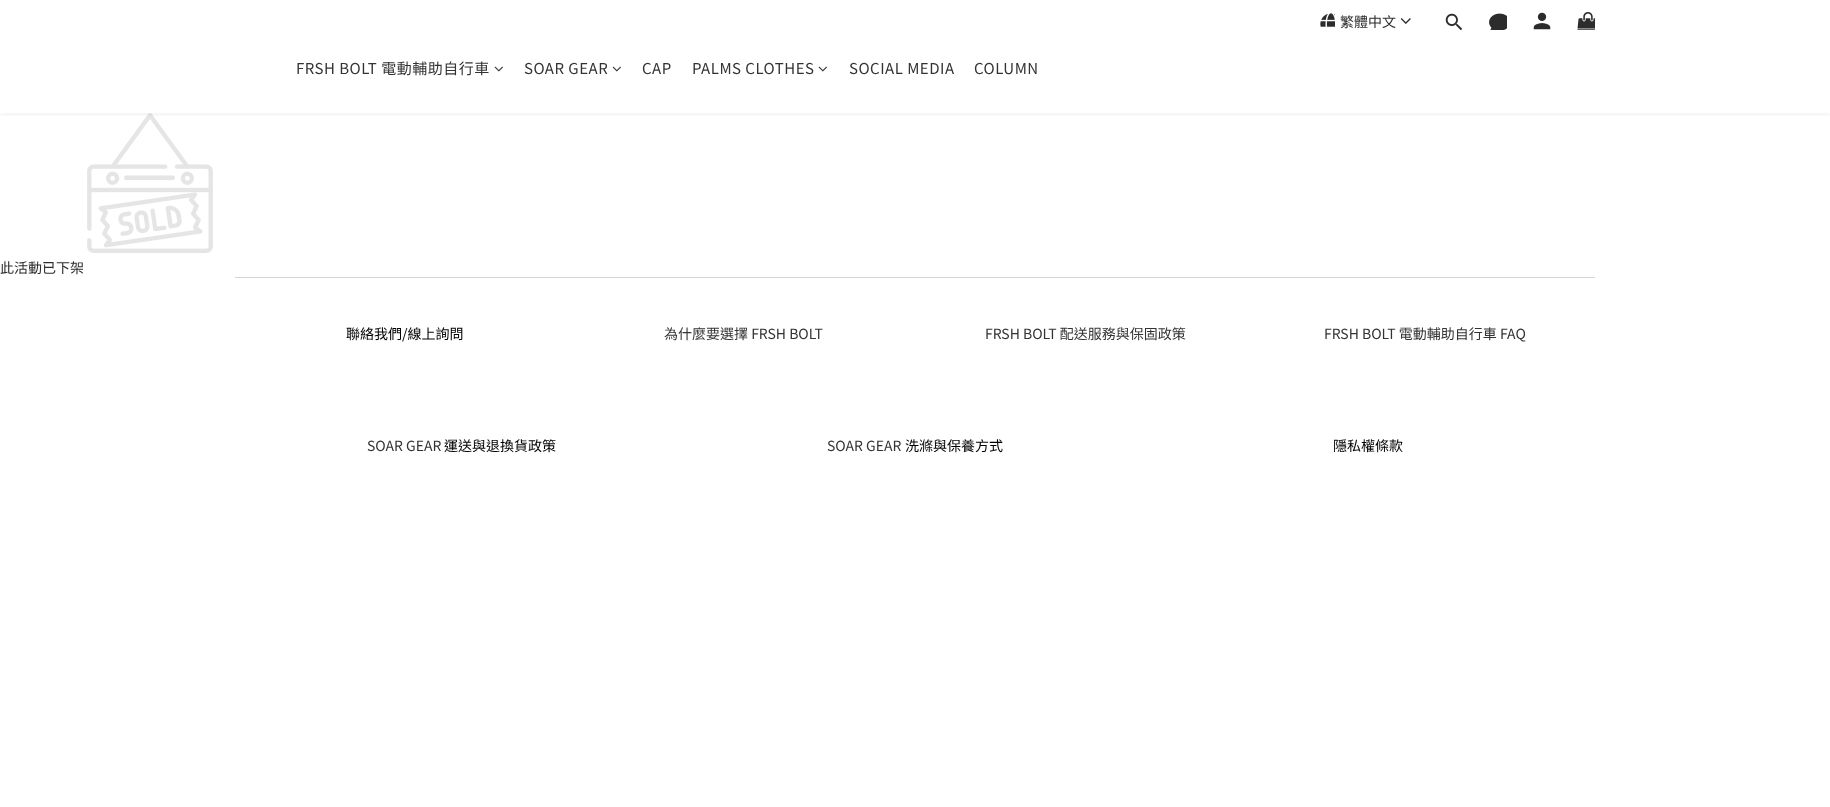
(async () => {
    const canvas = document.querySelector("canvas");
    canvas.width = 1830;
    canvas.height = 807;
    const context = canvas.getContext("2d");
    context.miterLimit = 4;
    context.fontKerning = "normal";
    function write(s, x, y, font, color) {
        context.font = font;
        context.fillStyle = color;
        context.fillText(s, x, y);
    }
    function block(x, y, w, h, color) {
        context.fillStyle = color;
        context.fillRect(x, y, w, h);
    }
    async function photo(src, x, y, w, h) {
        const img = new Image();
        img.src = src;
        await img.decode();
        context.drawImage(img, x, y, w, h);
    }

    block(0, 0, 1830, 807, "rgb(255, 255, 255)");
    await photo("media/8.png", 87, 113, 126, 140);
    context.save();
    context.beginPath();
    context.rect(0, 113, 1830, 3);
    context.clip();
    context.fillStyle = "rgba(0, 0, 0, 0.06)";
    context.filter = "blur(3px)";
    context.beginPath();
    context.rect(0, 2, 1830, 113);
    context.fill();
    context.filter = "none";
    context.restore();
    await photo("media/1.png", 1320, 13, 15, 14);
    write("繁體中文", 1340, 27, "14px Noto Sans TC", "rgb(44, 44, 44)");
    await photo("media/2.png", 1400, 18, 11, 6);
    await photo("media/3.png", 1445, 13, 18, 18);
    await photo("media/4.png", 1489, 13, 18, 17);
    await photo("media/5.png", 1533, 12, 18, 18);
    await photo("media/6.png", 1577, 12, 18, 18);
    context.letterSpacing = "0.5px";
    write("FRSH BOLT 電動輔助自行車", 296, 74, "15px Noto Sans TC", "rgb(51, 51, 51)");
    await photo("media/7.png", 494, 66, 9, 6);
    write("SOAR GEAR", 524, 74, "15px Noto Sans TC", "rgb(51, 51, 51)");
    await photo("media/7.png", 612, 66, 9, 6);
    write("CAP", 642, 74, "15px Noto Sans TC", "rgb(51, 51, 51)");
    write("PALMS CLOTHES", 692, 74, "15px Noto Sans TC", "rgb(51, 51, 51)");
    await photo("media/7.png", 818, 66, 9, 6);
    write("SOCIAL MEDIA", 849, 74, "15px Noto Sans TC", "rgb(51, 51, 51)");
    write("COLUMN", 974, 74, "15px Noto Sans TC", "rgb(51, 51, 51)");
    context.letterSpacing = "0px";
    write("此活動已下架", 0, 273, "14px Noto Sans TC", "rgb(44, 44, 44)");
    block(235, 277, 1360, 1, "rgb(214, 214, 214)");
    write("聯絡我們/線上詢問", 346, 339, "14px Noto Sans TC", "rgb(0, 0, 0)");
    write("為什麼要選擇 FRSH BOLT", 664, 339, "14px Noto Sans TC", "rgb(51, 51, 51)");
    write("FRSH BOLT 配送服務與保固政策", 985, 339, "14px Noto Sans TC", "rgb(51, 51, 51)");
    write("FRSH BOLT 電動輔助自行車 FAQ", 1324, 339, "14px Noto Sans TC", "rgb(51, 51, 51)");
    write("SOAR GEAR", 367, 451, "14px Noto Sans TC", "rgb(51, 51, 51)");
    write("運送與退換貨政策", 444, 451, "14px Noto Sans TC", "rgb(0, 0, 0)");
    write("SOAR GEAR", 827, 451, "14px Noto Sans TC", "rgb(51, 51, 51)");
    write("洗滌與保養方式", 905, 451, "14px Noto Sans TC", "rgb(0, 0, 0)");
    write("隱私權條款", 1333, 451, "14px Noto Sans TC", "rgb(0, 0, 0)");
})();
